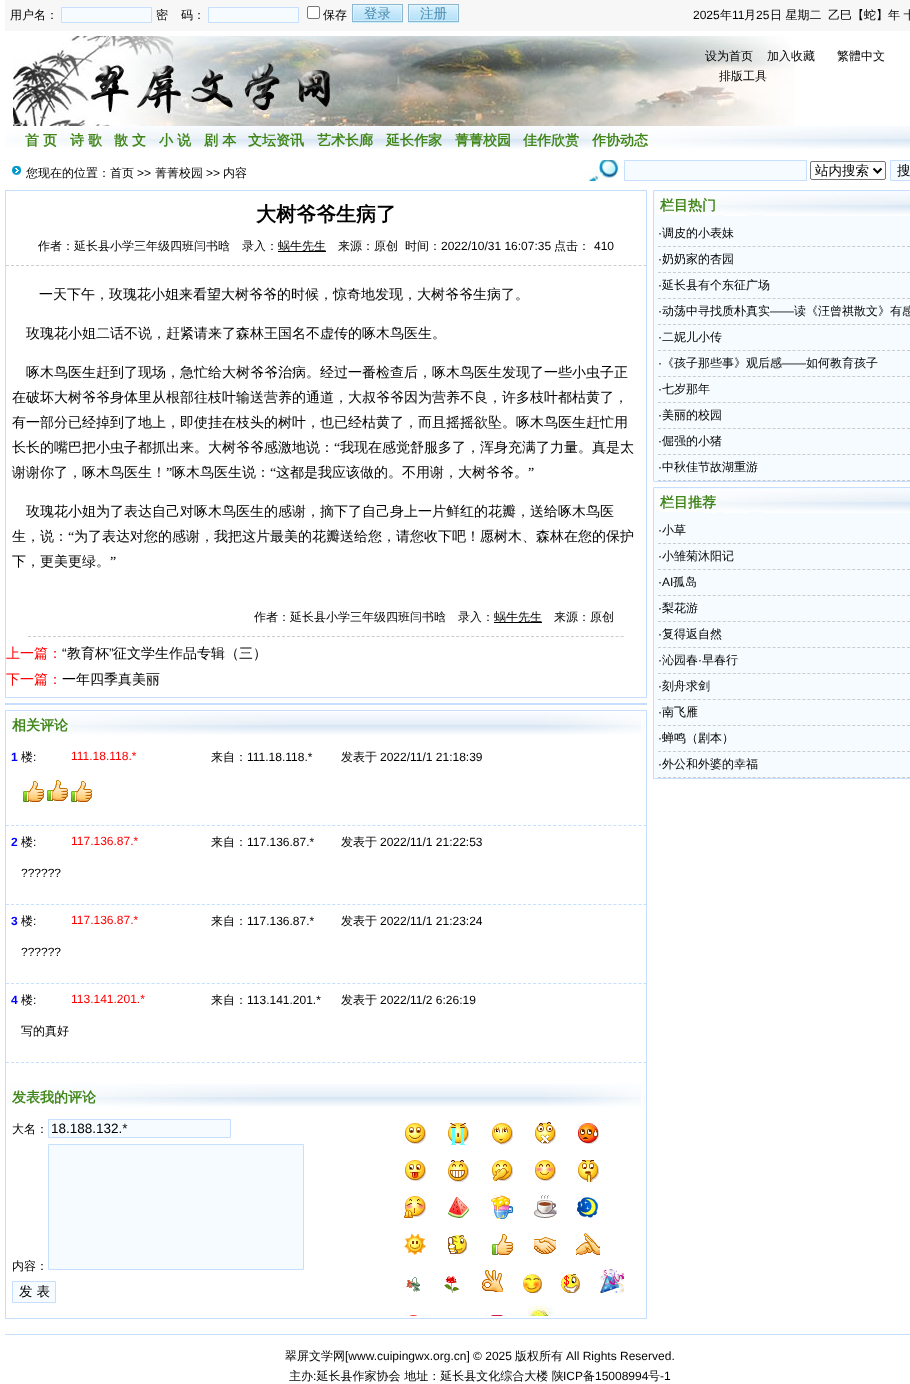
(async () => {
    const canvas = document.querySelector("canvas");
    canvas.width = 910;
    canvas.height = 1384;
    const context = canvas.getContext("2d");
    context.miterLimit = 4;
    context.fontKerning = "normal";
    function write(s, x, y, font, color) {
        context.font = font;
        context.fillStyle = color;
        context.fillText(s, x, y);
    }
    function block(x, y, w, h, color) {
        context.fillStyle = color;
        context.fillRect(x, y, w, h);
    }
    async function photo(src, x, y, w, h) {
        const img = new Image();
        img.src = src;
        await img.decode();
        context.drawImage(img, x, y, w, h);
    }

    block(0, 0, 910, 1384, "rgb(255, 255, 255)");
    block(5, 0, 905, 31, "rgb(247, 247, 247)");
    write("用户名：", 10, 19, "500 12px WenQuanYi Zen Hei", "rgb(0, 0, 0)");
    context.fillStyle = "rgb(245, 251, 255)";
    context.beginPath();
    context.rect(61.5, 7.5, 90, 15);
    context.fill();
    context.strokeStyle = "rgb(198, 223, 255)";
    context.stroke();
    write("密", 156, 19, "500 12px WenQuanYi Zen Hei", "rgb(0, 0, 0)");
    write("码：", 181, 19, "500 12px WenQuanYi Zen Hei", "rgb(0, 0, 0)");
    context.fillStyle = "rgb(245, 251, 255)";
    context.beginPath();
    context.rect(208.5, 7.5, 90, 15);
    context.fill();
    context.stroke();
    context.fillStyle = "rgb(255, 255, 255)";
    context.beginPath();
    context.roundRect(307.5, 6.5, 12, 12, 1.5);
    context.fill();
    context.strokeStyle = "rgb(118, 118, 118)";
    context.stroke();
    write("保存", 323, 19, "500 12px WenQuanYi Zen Hei", "rgb(0, 0, 0)");
    block(352, 22, 51, 1, "rgb(200, 239, 255)");
    await photo("media/1.png", 352, 4, 51, 18);
    write("登录", 364, 18, "500 13.5px WenQuanYi Zen Hei", "rgb(73, 139, 175)");
    block(408, 22, 51, 1, "rgb(200, 239, 255)");
    await photo("media/1.png", 408, 4, 51, 18);
    write("注册", 420, 18, "500 13.5px WenQuanYi Zen Hei", "rgb(73, 139, 175)");
    write("2025", 693, 19, "12px Liberation Sans", "rgb(0, 0, 0)");
    write("年", 720, 19, "500 12px WenQuanYi Zen Hei", "rgb(0, 0, 0)");
    write("11", 732, 19, "12px Liberation Sans", "rgb(0, 0, 0)");
    write("月", 744, 19, "500 12px WenQuanYi Zen Hei", "rgb(0, 0, 0)");
    write("25", 756, 19, "12px Liberation Sans", "rgb(0, 0, 0)");
    write("日 星期二", 770, 19, "500 12px WenQuanYi Zen Hei", "rgb(0, 0, 0)");
    write("乙巳【蛇】年 十", 828, 19, "500 12px WenQuanYi Zen Hei", "rgb(0, 0, 0)");
    await photo("media/2.png", 13, 36, 782, 90);
    write("设为首页", 705, 60, "500 12px WenQuanYi Zen Hei", "rgb(0, 0, 0)");
    write("加入收藏", 767, 60, "500 12px WenQuanYi Zen Hei", "rgb(0, 0, 0)");
    write("繁體中文", 837, 60, "500 12px WenQuanYi Zen Hei", "rgb(0, 0, 0)");
    write("排版工具", 719, 80, "500 12px WenQuanYi Zen Hei", "rgb(0, 0, 0)");
    await photo("media/3.png", 5, 126, 905, 23);
    write("首", 25, 145, "bold 14px WenQuanYi Zen Hei", "rgb(65, 134, 25)");
    write("页", 43, 145, "bold 14px WenQuanYi Zen Hei", "rgb(65, 134, 25)");
    write("诗", 70, 145, "bold 14px WenQuanYi Zen Hei", "rgb(65, 134, 25)");
    write("歌", 88, 145, "bold 14px WenQuanYi Zen Hei", "rgb(65, 134, 25)");
    write("散", 114, 145, "bold 14px WenQuanYi Zen Hei", "rgb(65, 134, 25)");
    write("文", 132, 145, "bold 14px WenQuanYi Zen Hei", "rgb(65, 134, 25)");
    write("小", 159, 145, "bold 14px WenQuanYi Zen Hei", "rgb(65, 134, 25)");
    write("说", 177, 145, "bold 14px WenQuanYi Zen Hei", "rgb(65, 134, 25)");
    write("剧 本", 204, 145, "bold 14px WenQuanYi Zen Hei", "rgb(65, 134, 25)");
    write("文坛资讯", 248, 145, "bold 14px WenQuanYi Zen Hei", "rgb(65, 134, 25)");
    write("艺术长廊", 317, 145, "bold 14px WenQuanYi Zen Hei", "rgb(65, 134, 25)");
    write("延长作家", 386, 145, "bold 14px WenQuanYi Zen Hei", "rgb(65, 134, 25)");
    write("菁菁校园", 455, 145, "bold 14px WenQuanYi Zen Hei", "rgb(65, 134, 25)");
    write("佳作欣赏", 523, 145, "bold 14px WenQuanYi Zen Hei", "rgb(65, 134, 25)");
    write("作协动态", 592, 145, "bold 14px WenQuanYi Zen Hei", "rgb(65, 134, 25)");
    await photo("media/4.png", 12, 166, 9, 9);
    write("您现在的位置：首页", 26, 177, "500 12px WenQuanYi Zen Hei", "rgb(0, 0, 0)");
    write(">>", 137, 177, "12px Liberation Sans", "rgb(0, 0, 0)");
    write("菁菁校园", 155, 177, "500 12px WenQuanYi Zen Hei", "rgb(0, 0, 0)");
    write(">>", 206, 177, "12px Liberation Sans", "rgb(0, 0, 0)");
    write("内容", 223, 177, "500 12px WenQuanYi Zen Hei", "rgb(0, 0, 0)");
    await photo("media/5.png", 584, 160, 35, 21);
    context.fillStyle = "rgb(245, 251, 255)";
    context.beginPath();
    context.rect(624.5, 160.5, 182, 20);
    context.fill();
    context.strokeStyle = "rgb(198, 223, 255)";
    context.stroke();
    context.beginPath();
    context.roundRect(810.5, 161.5, 75, 18, 1.5);
    context.strokeStyle = "rgb(118, 118, 118)";
    context.stroke();
    context.beginPath();
    context.moveTo(873.5, 168.5);
    context.lineTo(877.5, 172.5);
    context.lineTo(881.5, 168.5);
    context.strokeStyle = "rgb(0, 0, 0)";
    context.lineWidth = 2;
    context.stroke();
    write("站内搜索", 815, 175, "500 13.5px WenQuanYi Zen Hei", "rgb(0, 0, 0)");
    context.fillStyle = "rgb(245, 251, 255)";
    context.beginPath();
    context.rect(890.5, 160.5, 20, 20);
    context.fill();
    context.strokeStyle = "rgb(198, 223, 255)";
    context.lineWidth = 1;
    context.stroke();
    write("搜", 897, 175, "500 13.5px WenQuanYi Zen Hei", "rgb(0, 0, 0)");
    context.strokeRect(5.5, 190.5, 641, 507);
    write("大树爷爷生病了", 256, 221, "bold 20px WenQuanYi Zen Hei", "rgb(0, 0, 0)");
    context.beginPath();
    context.moveTo(6, 265.5);
    context.lineTo(646, 265.5);
    context.strokeStyle = "rgb(204, 204, 204)";
    context.setLineDash([3, 2.02]);
    context.stroke();
    write("作者：延长县小学三年级四班闫书晗　录入：", 38, 250, "500 12px WenQuanYi Zen Hei", "rgb(0, 0, 0)");
    block(278, 251, 48, 1, "rgb(0, 0, 0)");
    write("蜗牛先生", 278, 250, "500 12px WenQuanYi Zen Hei", "rgb(0, 0, 0)");
    write("来源：原创", 338, 250, "500 12px WenQuanYi Zen Hei", "rgb(0, 0, 0)");
    write("时间：", 405, 250, "500 12px WenQuanYi Zen Hei", "rgb(0, 0, 0)");
    write("2022/10/31 16:07:35", 441, 250, "12px Liberation Sans", "rgb(0, 0, 0)");
    write("点击：", 554, 250, "500 12px WenQuanYi Zen Hei", "rgb(0, 0, 0)");
    write("410", 594, 250, "12px Liberation Sans", "rgb(0, 0, 0)");
    write("一天下午，玫瑰花小姐来看望大树爷爷的时候，惊奇地发现，大树爷爷生病了。", 39, 299, "500 14px WenQuanYi Zen Hei", "rgb(0, 0, 0)");
    write("玫瑰花小姐二话不说，赶紧请来了森林王国名不虚传的啄木鸟医生。", 26, 338, "500 14px WenQuanYi Zen Hei", "rgb(0, 0, 0)");
    write("啄木鸟医生赶到了现场，急忙给大树爷爷治病。经过一番检查后，啄木鸟医生发现了一些小虫子正", 26, 377, "500 14px WenQuanYi Zen Hei", "rgb(0, 0, 0)");
    write("在破坏大树爷爷身体里从根部往枝叶输送营养的通道，大叔爷爷因为营养不良，许多枝叶都枯黄了，", 12, 402, "500 14px WenQuanYi Zen Hei", "rgb(0, 0, 0)");
    write("有一部分已经掉到了地上，即使挂在枝头的树叶，也已经枯黄了，而且摇摇欲坠。啄木鸟医生赶忙用", 12, 427, "500 14px WenQuanYi Zen Hei", "rgb(0, 0, 0)");
    write("长长的嘴巴把小虫子都抓出来。大树爷爷感激地说：", 12, 452, "500 14px WenQuanYi Zen Hei", "rgb(0, 0, 0)");
    write("“", 334, 452, "14px Liberation Serif", "rgb(0, 0, 0)");
    write("我现在感觉舒服多了，浑身充满了力量。真是太", 340, 452, "500 14px WenQuanYi Zen Hei", "rgb(0, 0, 0)");
    write("谢谢你了，啄木鸟医生！", 12, 477, "500 14px WenQuanYi Zen Hei", "rgb(0, 0, 0)");
    write("”", 166, 477, "14px Liberation Serif", "rgb(0, 0, 0)");
    write("啄木鸟医生说：", 172, 477, "500 14px WenQuanYi Zen Hei", "rgb(0, 0, 0)");
    write("“", 270, 477, "14px Liberation Serif", "rgb(0, 0, 0)");
    write("这都是我应该做的。不用谢，大树爷爷。", 276, 477, "500 14px WenQuanYi Zen Hei", "rgb(0, 0, 0)");
    write("”", 528, 477, "14px Liberation Serif", "rgb(0, 0, 0)");
    write("玫瑰花小姐为了表达自己对啄木鸟医生的感谢，摘下了自己身上一片鲜红的花瓣，送给啄木鸟医", 26, 516, "500 14px WenQuanYi Zen Hei", "rgb(0, 0, 0)");
    write("生，说：", 12, 541, "500 14px WenQuanYi Zen Hei", "rgb(0, 0, 0)");
    write("“", 68, 541, "14px Liberation Serif", "rgb(0, 0, 0)");
    write("为了表达对您的感谢，我把这片最美的花瓣送给您，请您收下吧！愿树木、森林在您的保护", 74, 541, "500 14px WenQuanYi Zen Hei", "rgb(0, 0, 0)");
    write("下，更美更绿。", 12, 566, "500 14px WenQuanYi Zen Hei", "rgb(0, 0, 0)");
    write("”", 110, 566, "14px Liberation Serif", "rgb(0, 0, 0)");
    context.beginPath();
    context.moveTo(28, 636.5);
    context.lineTo(624, 636.5);
    context.setLineDash([3, 1.98]);
    context.stroke();
    write("作者：延长县小学三年级四班闫书晗　录入：", 254, 621, "500 12px WenQuanYi Zen Hei", "rgb(0, 0, 0)");
    block(494, 622, 48, 1, "rgb(0, 0, 0)");
    write("蜗牛先生", 494, 621, "500 12px WenQuanYi Zen Hei", "rgb(0, 0, 0)");
    write("来源：原创", 554, 621, "500 12px WenQuanYi Zen Hei", "rgb(0, 0, 0)");
    write("上一篇：", 6, 658, "500 14px WenQuanYi Zen Hei", "rgb(255, 0, 0)");
    write("“", 62, 658, "14px Liberation Sans", "rgb(0, 0, 0)");
    write("教育杯", 67, 658, "500 14px WenQuanYi Zen Hei", "rgb(0, 0, 0)");
    write("”", 109, 658, "14px Liberation Sans", "rgb(0, 0, 0)");
    write("征文学生作品专辑（三）", 113, 658, "500 14px WenQuanYi Zen Hei", "rgb(0, 0, 0)");
    write("下一篇：", 6, 684, "500 14px WenQuanYi Zen Hei", "rgb(255, 0, 0)");
    write("一年四季真美丽", 62, 684, "500 14px WenQuanYi Zen Hei", "rgb(0, 0, 0)");
    block(5, 703, 642, 2, "rgb(198, 223, 255)");
    context.strokeStyle = "rgb(198, 223, 255)";
    context.setLineDash([]);
    context.strokeRect(5.5, 710.5, 641, 608);
    await photo("media/6.png", 7, 712, 638, 23);
    write("相关评论", 12, 730, "bold 14px WenQuanYi Zen Hei", "rgb(65, 134, 25)");
    context.beginPath();
    context.moveTo(6, 825.5);
    context.lineTo(646, 825.5);
    context.setLineDash([3, 2.02]);
    context.stroke();
    write("1", 11, 761, "bold 12px Liberation Sans", "rgb(0, 0, 255)");
    write("楼", 21, 761, "500 12px WenQuanYi Zen Hei", "rgb(0, 0, 0)");
    write(":", 33, 761, "12px Liberation Sans", "rgb(0, 0, 0)");
    write("111.18.118.*", 71, 760, "12px Liberation Sans", "rgb(255, 0, 0)");
    write("来自：", 211, 761, "500 12px WenQuanYi Zen Hei", "rgb(0, 0, 0)");
    write("111.18.118.*", 247, 761, "12px Liberation Sans", "rgb(0, 0, 0)");
    write("发表于", 341, 761, "500 12px WenQuanYi Zen Hei", "rgb(0, 0, 0)");
    write("2022/11/1 21:18:39", 380, 761, "12px Liberation Sans", "rgb(0, 0, 0)");
    await photo("media/7.png", 23, 781, 21, 21);
    await photo("media/8.png", 47, 780, 21, 21);
    await photo("media/7.png", 71, 781, 21, 21);
    context.beginPath();
    context.moveTo(6, 904.5);
    context.lineTo(646, 904.5);
    context.stroke();
    write("2", 11, 846, "bold 12px Liberation Sans", "rgb(0, 0, 255)");
    write("楼", 21, 846, "500 12px WenQuanYi Zen Hei", "rgb(0, 0, 0)");
    write(":", 33, 846, "12px Liberation Sans", "rgb(0, 0, 0)");
    write("117.136.87.*", 71, 845, "12px Liberation Sans", "rgb(255, 0, 0)");
    write("来自：", 211, 846, "500 12px WenQuanYi Zen Hei", "rgb(0, 0, 0)");
    write("117.136.87.*", 247, 846, "12px Liberation Sans", "rgb(0, 0, 0)");
    write("发表于", 341, 846, "500 12px WenQuanYi Zen Hei", "rgb(0, 0, 0)");
    write("2022/11/1 21:22:53", 380, 846, "12px Liberation Sans", "rgb(0, 0, 0)");
    write("??????", 21, 877, "12px Liberation Sans", "rgb(0, 0, 0)");
    context.beginPath();
    context.moveTo(6, 983.5);
    context.lineTo(646, 983.5);
    context.stroke();
    write("3", 11, 925, "bold 12px Liberation Sans", "rgb(0, 0, 255)");
    write("楼", 21, 925, "500 12px WenQuanYi Zen Hei", "rgb(0, 0, 0)");
    write(":", 33, 925, "12px Liberation Sans", "rgb(0, 0, 0)");
    write("117.136.87.*", 71, 924, "12px Liberation Sans", "rgb(255, 0, 0)");
    write("来自：", 211, 925, "500 12px WenQuanYi Zen Hei", "rgb(0, 0, 0)");
    write("117.136.87.*", 247, 925, "12px Liberation Sans", "rgb(0, 0, 0)");
    write("发表于", 341, 925, "500 12px WenQuanYi Zen Hei", "rgb(0, 0, 0)");
    write("2022/11/1 21:23:24", 380, 925, "12px Liberation Sans", "rgb(0, 0, 0)");
    write("??????", 21, 956, "12px Liberation Sans", "rgb(0, 0, 0)");
    context.beginPath();
    context.moveTo(6, 1062.5);
    context.lineTo(646, 1062.5);
    context.stroke();
    write("4", 11, 1004, "bold 12px Liberation Sans", "rgb(0, 0, 255)");
    write("楼", 21, 1004, "500 12px WenQuanYi Zen Hei", "rgb(0, 0, 0)");
    write(":", 33, 1004, "12px Liberation Sans", "rgb(0, 0, 0)");
    write("113.141.201.*", 71, 1003, "12px Liberation Sans", "rgb(255, 0, 0)");
    write("来自：", 211, 1004, "500 12px WenQuanYi Zen Hei", "rgb(0, 0, 0)");
    write("113.141.201.*", 247, 1004, "12px Liberation Sans", "rgb(0, 0, 0)");
    write("发表于", 341, 1004, "500 12px WenQuanYi Zen Hei", "rgb(0, 0, 0)");
    write("2022/11/2 6:26:19", 380, 1004, "12px Liberation Sans", "rgb(0, 0, 0)");
    write("写的真好", 21, 1035, "500 12px WenQuanYi Zen Hei", "rgb(0, 0, 0)");
    await photo("media/6.png", 7, 1084, 638, 23);
    write("发表我的评论", 12, 1102, "bold 14px WenQuanYi Zen Hei", "rgb(65, 134, 25)");
    write("大名：", 12, 1133, "500 12px WenQuanYi Zen Hei", "rgb(0, 0, 0)");
    context.fillStyle = "rgb(245, 251, 255)";
    context.beginPath();
    context.rect(48.5, 1119.5, 182, 18);
    context.fill();
    context.setLineDash([]);
    context.stroke();
    write("18.188.132.*", 51, 1133, "13.5px Liberation Sans", "rgb(0, 0, 0)");
    write("内容：", 12, 1270, "500 12px WenQuanYi Zen Hei", "rgb(0, 0, 0)");
    context.fillStyle = "rgb(245, 251, 255)";
    context.beginPath();
    context.rect(48.5, 1144.5, 255, 125);
    context.fill();
    context.stroke();
    context.beginPath();
    context.rect(12.5, 1281.5, 43, 21);
    context.fill();
    context.stroke();
    write("发 表", 19, 1296, "500 13.5px WenQuanYi Zen Hei", "rgb(0, 0, 0)");
    await photo("media/9.png", 405, 1123, 21, 21);
    await photo("media/10.png", 448, 1123, 21, 22);
    await photo("media/11.png", 492, 1123, 21, 22);
    await photo("media/12.png", 535, 1122, 21, 22);
    await photo("media/13.png", 578, 1123, 21, 21);
    await photo("media/14.png", 405, 1160, 21, 21);
    await photo("media/15.png", 448, 1160, 21, 22);
    await photo("media/16.png", 492, 1160, 21, 21);
    await photo("media/17.png", 535, 1160, 21, 21);
    await photo("media/18.png", 578, 1160, 21, 22);
    await photo("media/19.png", 404, 1196, 22, 22);
    await photo("media/20.png", 448, 1197, 21, 21);
    await photo("media/21.png", 491, 1195, 22, 24);
    await photo("media/22.png", 534, 1195, 23, 23);
    await photo("media/23.png", 577, 1197, 21, 21);
    await photo("media/24.png", 404, 1234, 22, 21);
    await photo("media/25.png", 448, 1235, 19, 19);
    await photo("media/7.png", 492, 1234, 21, 21);
    await photo("media/26.png", 534, 1237, 22, 17);
    await photo("media/27.png", 576, 1233, 24, 22);
    await photo("media/28.png", 406, 1277, 14, 15);
    await photo("media/29.png", 444, 1276, 16, 17);
    await photo("media/30.png", 482, 1270, 21, 22);
    await photo("media/31.png", 523, 1274, 19, 19);
    await photo("media/32.png", 561, 1274, 19, 19);
    await photo("media/33.png", 600, 1269, 24, 24);
    await photo("media/34.png", 409, 1315, 9, 1);
    await photo("media/35.png", 491, 1315, 12, 1);
    await photo("media/36.png", 528, 1306, 26, 10);
    context.fillStyle = "rgb(245, 251, 255)";
    context.beginPath();
    context.rect(653.5, 190.5, 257, 291);
    context.fill();
    context.stroke();
    await photo("media/37.png", 655, 192, 255, 24);
    write("栏目热门", 660, 210, "bold 14px WenQuanYi Zen Hei", "rgb(65, 134, 25)");
    context.beginPath();
    context.moveTo(658, 246.5);
    context.lineTo(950, 246.5);
    context.strokeStyle = "rgb(204, 204, 204)";
    context.setLineDash([3, 1.98]);
    context.stroke();
    write("·", 658, 237, "12px Liberation Sans", "rgb(0, 0, 0)");
    write("调皮的小表妹", 662, 237, "500 12px WenQuanYi Zen Hei", "rgb(0, 0, 0)");
    context.beginPath();
    context.moveTo(658, 272.5);
    context.lineTo(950, 272.5);
    context.stroke();
    write("·", 658, 263, "12px Liberation Sans", "rgb(0, 0, 0)");
    write("奶奶家的杏园", 662, 263, "500 12px WenQuanYi Zen Hei", "rgb(0, 0, 0)");
    context.beginPath();
    context.moveTo(658, 298.5);
    context.lineTo(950, 298.5);
    context.stroke();
    write("·", 658, 289, "12px Liberation Sans", "rgb(0, 0, 0)");
    write("延长县有个东征广场", 662, 289, "500 12px WenQuanYi Zen Hei", "rgb(0, 0, 0)");
    context.beginPath();
    context.moveTo(658, 324.5);
    context.lineTo(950, 324.5);
    context.stroke();
    write("·", 658, 315, "12px Liberation Sans", "rgb(0, 0, 0)");
    write("动荡中寻找质朴真实", 662, 315, "500 12px WenQuanYi Zen Hei", "rgb(0, 0, 0)");
    write("——", 770, 315, "12px Liberation Sans", "rgb(0, 0, 0)");
    write("读《汪曾祺散文》有感", 794, 315, "500 12px WenQuanYi Zen Hei", "rgb(0, 0, 0)");
    context.beginPath();
    context.moveTo(658, 350.5);
    context.lineTo(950, 350.5);
    context.stroke();
    write("·", 658, 341, "12px Liberation Sans", "rgb(0, 0, 0)");
    write("二妮儿小传", 662, 341, "500 12px WenQuanYi Zen Hei", "rgb(0, 0, 0)");
    context.beginPath();
    context.moveTo(658, 376.5);
    context.lineTo(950, 376.5);
    context.stroke();
    write("·", 658, 367, "12px Liberation Sans", "rgb(0, 0, 0)");
    write("《孩子那些事》观后感", 662, 367, "500 12px WenQuanYi Zen Hei", "rgb(0, 0, 0)");
    write("——", 782, 367, "12px Liberation Sans", "rgb(0, 0, 0)");
    write("如何教育孩子", 806, 367, "500 12px WenQuanYi Zen Hei", "rgb(0, 0, 0)");
    context.beginPath();
    context.moveTo(658, 402.5);
    context.lineTo(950, 402.5);
    context.stroke();
    write("·", 658, 393, "12px Liberation Sans", "rgb(0, 0, 0)");
    write("七岁那年", 662, 393, "500 12px WenQuanYi Zen Hei", "rgb(0, 0, 0)");
    context.beginPath();
    context.moveTo(658, 428.5);
    context.lineTo(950, 428.5);
    context.stroke();
    write("·", 658, 419, "12px Liberation Sans", "rgb(0, 0, 0)");
    write("美丽的校园", 662, 419, "500 12px WenQuanYi Zen Hei", "rgb(0, 0, 0)");
    context.beginPath();
    context.moveTo(658, 454.5);
    context.lineTo(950, 454.5);
    context.stroke();
    write("·", 658, 445, "12px Liberation Sans", "rgb(0, 0, 0)");
    write("倔强的小猪", 662, 445, "500 12px WenQuanYi Zen Hei", "rgb(0, 0, 0)");
    context.beginPath();
    context.moveTo(658, 480.5);
    context.lineTo(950, 480.5);
    context.stroke();
    write("·", 658, 471, "12px Liberation Sans", "rgb(0, 0, 0)");
    write("中秋佳节故湖重游", 662, 471, "500 12px WenQuanYi Zen Hei", "rgb(0, 0, 0)");
    context.fillStyle = "rgb(245, 251, 255)";
    context.beginPath();
    context.rect(653.5, 487.5, 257, 291);
    context.fill();
    context.strokeStyle = "rgb(198, 223, 255)";
    context.setLineDash([]);
    context.stroke();
    await photo("media/37.png", 655, 489, 255, 24);
    write("栏目推荐", 660, 507, "bold 14px WenQuanYi Zen Hei", "rgb(65, 134, 25)");
    context.beginPath();
    context.moveTo(658, 543.5);
    context.lineTo(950, 543.5);
    context.strokeStyle = "rgb(204, 204, 204)";
    context.setLineDash([3, 1.98]);
    context.stroke();
    write("·", 658, 534, "12px Liberation Sans", "rgb(0, 0, 0)");
    write("小草", 662, 534, "500 12px WenQuanYi Zen Hei", "rgb(0, 0, 0)");
    context.beginPath();
    context.moveTo(658, 569.5);
    context.lineTo(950, 569.5);
    context.stroke();
    write("·", 658, 560, "12px Liberation Sans", "rgb(0, 0, 0)");
    write("小雏菊沐阳记", 662, 560, "500 12px WenQuanYi Zen Hei", "rgb(0, 0, 0)");
    context.beginPath();
    context.moveTo(658, 595.5);
    context.lineTo(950, 595.5);
    context.stroke();
    write("·AI", 658, 586, "12px Liberation Sans", "rgb(0, 0, 0)");
    write("孤岛", 673, 586, "500 12px WenQuanYi Zen Hei", "rgb(0, 0, 0)");
    context.beginPath();
    context.moveTo(658, 621.5);
    context.lineTo(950, 621.5);
    context.stroke();
    write("·", 658, 612, "12px Liberation Sans", "rgb(0, 0, 0)");
    write("梨花游", 662, 612, "500 12px WenQuanYi Zen Hei", "rgb(0, 0, 0)");
    context.beginPath();
    context.moveTo(658, 647.5);
    context.lineTo(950, 647.5);
    context.stroke();
    write("·", 658, 638, "12px Liberation Sans", "rgb(0, 0, 0)");
    write("复得返自然", 662, 638, "500 12px WenQuanYi Zen Hei", "rgb(0, 0, 0)");
    context.beginPath();
    context.moveTo(658, 673.5);
    context.lineTo(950, 673.5);
    context.stroke();
    write("·", 658, 664, "12px Liberation Sans", "rgb(0, 0, 0)");
    write("沁园春", 662, 664, "500 12px WenQuanYi Zen Hei", "rgb(0, 0, 0)");
    write("·", 698, 664, "12px Liberation Sans", "rgb(0, 0, 0)");
    write("早春行", 702, 664, "500 12px WenQuanYi Zen Hei", "rgb(0, 0, 0)");
    context.beginPath();
    context.moveTo(658, 699.5);
    context.lineTo(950, 699.5);
    context.stroke();
    write("·", 658, 690, "12px Liberation Sans", "rgb(0, 0, 0)");
    write("刻舟求剑", 662, 690, "500 12px WenQuanYi Zen Hei", "rgb(0, 0, 0)");
    context.beginPath();
    context.moveTo(658, 725.5);
    context.lineTo(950, 725.5);
    context.stroke();
    write("·", 658, 716, "12px Liberation Sans", "rgb(0, 0, 0)");
    write("南飞雁", 662, 716, "500 12px WenQuanYi Zen Hei", "rgb(0, 0, 0)");
    context.beginPath();
    context.moveTo(658, 751.5);
    context.lineTo(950, 751.5);
    context.stroke();
    write("·", 658, 742, "12px Liberation Sans", "rgb(0, 0, 0)");
    write("蝉鸣（剧本）", 662, 742, "500 12px WenQuanYi Zen Hei", "rgb(0, 0, 0)");
    context.beginPath();
    context.moveTo(658, 777.5);
    context.lineTo(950, 777.5);
    context.stroke();
    write("·", 658, 768, "12px Liberation Sans", "rgb(0, 0, 0)");
    write("外公和外婆的幸福", 662, 768, "500 12px WenQuanYi Zen Hei", "rgb(0, 0, 0)");
    block(5, 1334, 905, 1, "rgb(198, 223, 255)");
    write("翠屏文学网", 285, 1360, "500 12px WenQuanYi Zen Hei", "rgb(0, 0, 0)");
    write("[www.cuipingwx.org.cn] © 2025", 345, 1360, "12px Liberation Sans", "rgb(0, 0, 0)");
    write("版权所有", 515, 1360, "500 12px WenQuanYi Zen Hei", "rgb(0, 0, 0)");
    write("All Rights Reserved.", 566, 1360, "12px Liberation Sans", "rgb(0, 0, 0)");
    write("主办 延长县作家协会 地址：延长县文化综合大楼 陕", 289, 1380, "500 12px WenQuanYi Zen Hei", "rgb(0, 0, 0)");
    write("ICP", 563, 1380, "12px Liberation Sans", "rgb(0, 0, 0)");
    write("备", 583, 1380, "500 12px WenQuanYi Zen Hei", "rgb(0, 0, 0)");
    write("15008994", 595, 1380, "12px Liberation Sans", "rgb(0, 0, 0)");
    write("号", 648, 1380, "500 12px WenQuanYi Zen Hei", "rgb(0, 0, 0)");
    write("-1", 660, 1380, "12px Liberation Sans", "rgb(0, 0, 0)");
    write(":", 313, 1380, "12px Liberation Sans", "rgb(0, 0, 0)");
})();
